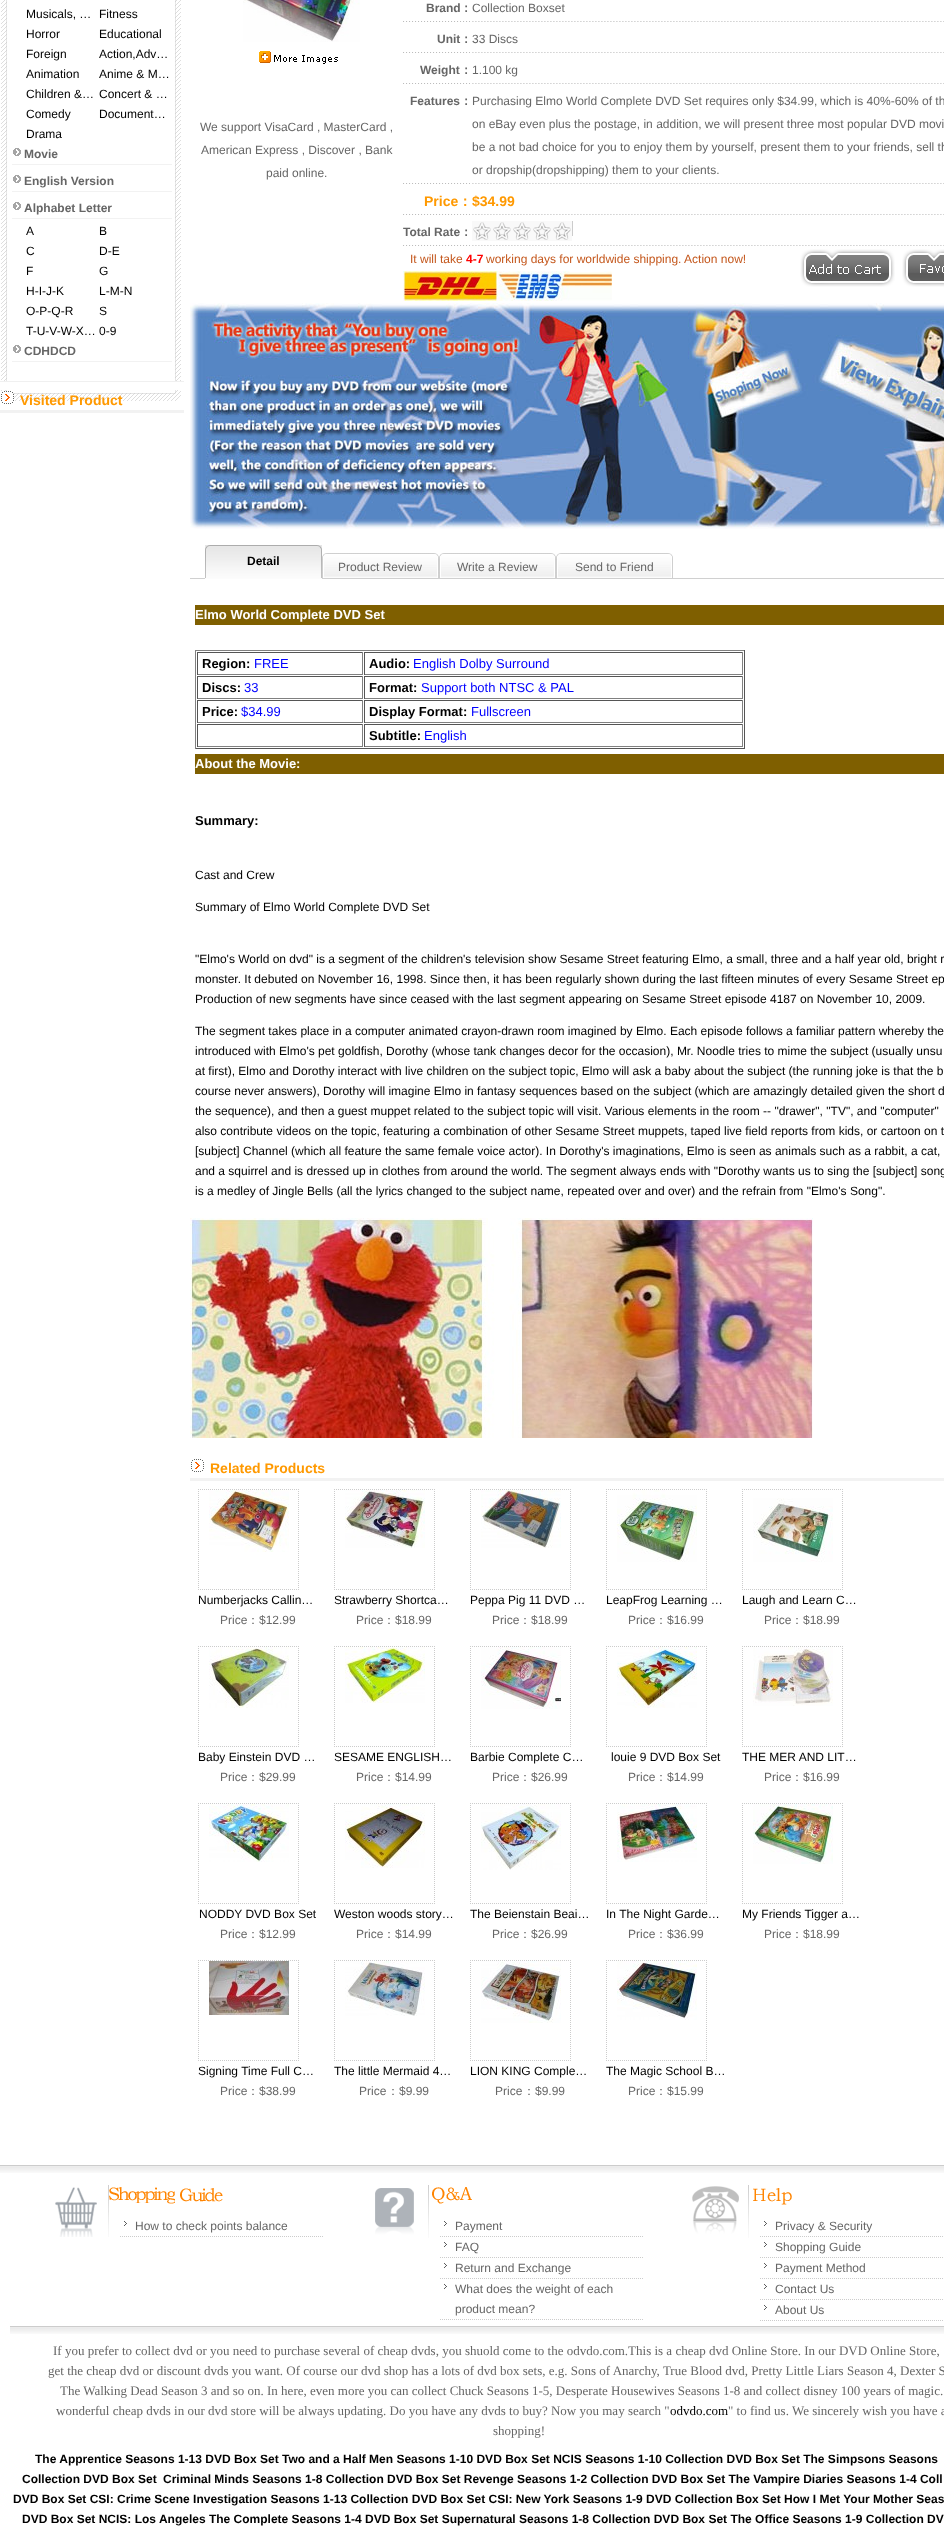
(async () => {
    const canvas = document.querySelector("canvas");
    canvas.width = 944;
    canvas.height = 2532;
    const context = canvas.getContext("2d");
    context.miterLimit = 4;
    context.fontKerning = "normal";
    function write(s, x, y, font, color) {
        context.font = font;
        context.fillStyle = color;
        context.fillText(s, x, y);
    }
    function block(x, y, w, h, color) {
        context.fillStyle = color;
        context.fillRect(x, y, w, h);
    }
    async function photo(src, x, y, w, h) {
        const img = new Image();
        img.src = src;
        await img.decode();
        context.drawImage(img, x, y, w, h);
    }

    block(0, 0, 944, 2532, "rgb(255, 255, 255)");
    await photo("media/1.png", 1, 0, 180, 381);
    block(0, 381, 184, 1, "rgb(240, 240, 240)");
    write("Musicals, …", 26, 18, "12px Liberation Sans", "rgb(0, 0, 0)");
    write("Fitness", 99, 18, "12px Liberation Sans", "rgb(0, 0, 0)");
    write("Horror", 26, 38, "12px Liberation Sans", "rgb(0, 0, 0)");
    write("Educational", 99, 38, "12px Liberation Sans", "rgb(0, 0, 0)");
    write("Foreign", 26, 58, "12px Liberation Sans", "rgb(0, 0, 0)");
    write("Action,Adv…", 99, 58, "12px Liberation Sans", "rgb(0, 0, 0)");
    write("Animation", 26, 78, "12px Liberation Sans", "rgb(0, 0, 0)");
    write("Anime & M…", 99, 78, "12px Liberation Sans", "rgb(0, 0, 0)");
    write("Children &…", 26, 98, "12px Liberation Sans", "rgb(0, 0, 0)");
    write("Concert & …", 99, 98, "12px Liberation Sans", "rgb(0, 0, 0)");
    write("Comedy", 26, 118, "12px Liberation Sans", "rgb(0, 0, 0)");
    write("Document…", 99, 118, "12px Liberation Sans", "rgb(0, 0, 0)");
    write("Drama", 26, 138, "12px Liberation Sans", "rgb(0, 0, 0)");
    await photo("media/2.png", 13, 148, 8, 8);
    block(12, 164, 160, 1, "rgb(242, 242, 242)");
    write("Movie", 24, 158, "bold 12px Liberation Sans", "rgb(102, 102, 102)");
    await photo("media/2.png", 13, 175, 8, 8);
    block(12, 191, 160, 1, "rgb(242, 242, 242)");
    write("English Version", 24, 185, "bold 12px Liberation Sans", "rgb(102, 102, 102)");
    await photo("media/2.png", 13, 202, 8, 8);
    block(12, 218, 160, 1, "rgb(242, 242, 242)");
    write("Alphabet Letter", 24, 212, "bold 12px Liberation Sans", "rgb(102, 102, 102)");
    write("A", 26, 235, "12px Liberation Sans", "rgb(0, 0, 0)");
    write("B", 99, 235, "12px Liberation Sans", "rgb(0, 0, 0)");
    write("C", 26, 255, "12px Liberation Sans", "rgb(0, 0, 0)");
    write("D-E", 99, 255, "12px Liberation Sans", "rgb(0, 0, 0)");
    write("F", 26, 275, "12px Liberation Sans", "rgb(0, 0, 0)");
    write("G", 99, 275, "12px Liberation Sans", "rgb(0, 0, 0)");
    write("H-I-J-K", 26, 295, "12px Liberation Sans", "rgb(0, 0, 0)");
    write("L-M-N", 99, 295, "12px Liberation Sans", "rgb(0, 0, 0)");
    write("O-P-Q-R", 26, 315, "12px Liberation Sans", "rgb(0, 0, 0)");
    write("S", 99, 315, "12px Liberation Sans", "rgb(0, 0, 0)");
    write("T-U-V-W-X… 0-9", 26, 335, "12px Liberation Sans", "rgb(0, 0, 0)");
    await photo("media/2.png", 13, 345, 8, 8);
    block(12, 361, 160, 1, "rgb(242, 242, 242)");
    write("CDHDCD", 24, 355, "bold 12px Liberation Sans", "rgb(102, 102, 102)");
    await photo("media/3.png", 1, 390, 180, 11);
    await photo("media/4.png", 1, 391, 13, 13);
    block(0, 410, 184, 3, "rgb(242, 242, 242)");
    write("Visited Product", 20, 405, "bold 14px Liberation Sans", "rgb(255, 153, 0)");
    await photo("media/5.png", 243, 0, 117, 42);
    await photo("media/6.png", 259, 51, 79, 13);
    write("We support VisaCard , MasterCard ,", 200, 131, "12px Liberation Sans", "rgb(102, 102, 102)");
    write("American Express , Discover , Bank", 201, 154, "12px Liberation Sans", "rgb(102, 102, 102)");
    write("paid online.", 266, 177, "12px Liberation Sans", "rgb(102, 102, 102)");
    await photo("media/7.png", 403, 21, 67, 1);
    write("Brand", 426, 12, "bold 12px Liberation Sans", "rgb(102, 102, 102)");
    write("：", 460, 12, "bold 12px WenQuanYi Zen Hei", "rgb(102, 102, 102)");
    await photo("media/8.png", 472, 21, 472, 1);
    write("Collection Boxset", 472, 12, "12px Liberation Sans", "rgb(102, 102, 102)");
    await photo("media/7.png", 403, 52, 67, 1);
    write("Unit", 437, 43, "bold 12px Liberation Sans", "rgb(102, 102, 102)");
    write("：", 460, 43, "bold 12px WenQuanYi Zen Hei", "rgb(102, 102, 102)");
    await photo("media/8.png", 472, 52, 472, 1);
    write("33 Discs", 472, 43, "12px Liberation Sans", "rgb(102, 102, 102)");
    await photo("media/7.png", 403, 83, 67, 1);
    write("Weight", 420, 74, "bold 12px Liberation Sans", "rgb(102, 102, 102)");
    write("：", 460, 74, "bold 12px WenQuanYi Zen Hei", "rgb(102, 102, 102)");
    await photo("media/8.png", 472, 83, 472, 1);
    write("1.100 kg", 472, 74, "12px Liberation Sans", "rgb(102, 102, 102)");
    await photo("media/7.png", 403, 183, 67, 1);
    write("Features", 410, 105, "bold 12px Liberation Sans", "rgb(102, 102, 102)");
    write("：", 460, 105, "bold 12px WenQuanYi Zen Hei", "rgb(102, 102, 102)");
    await photo("media/8.png", 472, 183, 472, 1);
    write("Purchasing Elmo World Complete DVD Set requires only $34.99, which is 40%-60% of th", 472, 105, "12px Liberation Sans", "rgb(102, 102, 102)");
    write("on eBay even plus the postage, in addition, we will present three most popular DVD movi", 472, 128, "12px Liberation Sans", "rgb(102, 102, 102)");
    write("be a not bad choice for you to enjoy them by yourself, present them to your friends, sell th", 472, 151, "12px Liberation Sans", "rgb(102, 102, 102)");
    write("or dropship(dropshipping) them to your clients.", 472, 174, "12px Liberation Sans", "rgb(102, 102, 102)");
    await photo("media/7.png", 403, 214, 67, 1);
    write("Price", 424, 206, "bold 14px Liberation Sans", "rgb(255, 153, 0)");
    write("：", 458, 206, "bold 14px WenQuanYi Zen Hei", "rgb(255, 153, 0)");
    await photo("media/8.png", 472, 214, 472, 1);
    write("$34.99", 472, 206, "bold 14px Liberation Sans", "rgb(255, 153, 0)");
    await photo("media/7.png", 403, 245, 67, 1);
    write("Total Rate", 403, 236, "bold 12px Liberation Sans", "rgb(102, 102, 102)");
    write("：", 460, 236, "bold 12px WenQuanYi Zen Hei", "rgb(102, 102, 102)");
    await photo("media/8.png", 472, 245, 472, 1);
    await photo("media/9.png", 472, 221, 10, 20);
    await photo("media/10.png", 482, 221, 10, 20);
    await photo("media/9.png", 492, 221, 10, 20);
    await photo("media/10.png", 502, 221, 10, 20);
    await photo("media/9.png", 512, 221, 10, 20);
    await photo("media/10.png", 522, 221, 10, 20);
    await photo("media/9.png", 532, 221, 10, 20);
    await photo("media/10.png", 542, 221, 10, 20);
    await photo("media/9.png", 552, 221, 10, 20);
    await photo("media/10.png", 562, 221, 10, 20);
    block(572, 221, 1, 15, "rgb(204, 204, 204)");
    write("It will take", 410, 263, "12px Liberation Sans", "rgb(196, 87, 28)");
    write("4-7", 466, 263, "bold 12px Liberation Sans", "rgb(255, 0, 0)");
    write("working days for worldwide shipping. Action now!", 486, 263, "12px Liberation Sans", "rgb(196, 87, 28)");
    await photo("media/11.png", 800, 249, 95, 38);
    await photo("media/12.png", 902, 249, 42, 38);
    await photo("media/13.png", 403, 271, 209, 30);
    await photo("media/14.png", 190, 303, 490, 226);
    await photo("media/15.png", 680, 303, 132, 226);
    await photo("media/16.png", 812, 303, 132, 226);
    block(190, 578, 754, 1, "rgb(208, 208, 208)");
    await photo("media/17.png", 205, 545, 117, 34);
    write("Detail", 247, 565, "bold 12px Liberation Sans", "rgb(0, 0, 0)");
    await photo("media/18.png", 322, 553, 117, 25);
    write("Product Review", 338, 571, "12px Liberation Sans", "rgb(102, 102, 102)");
    await photo("media/18.png", 439, 553, 117, 25);
    write("Write a Review", 457, 571, "12px Liberation Sans", "rgb(102, 102, 102)");
    await photo("media/18.png", 556, 553, 117, 25);
    write("Send to Friend", 575, 571, "12px Liberation Sans", "rgb(102, 102, 102)");
    block(195, 605, 749, 20, "rgb(127, 95, 0)");
    write("Elmo World Complete DVD Set", 195, 619, "bold 13px Liberation Sans", "rgb(255, 255, 255)");
    block(195, 650, 550, 1, "rgb(128, 128, 128)");
    block(744, 650, 1, 99, "rgb(85, 85, 85)");
    block(195, 748, 550, 1, "rgb(85, 85, 85)");
    block(195, 650, 1, 99, "rgb(128, 128, 128)");
    block(197, 652, 166, 1, "rgb(85, 85, 85)");
    block(362, 652, 1, 23, "rgb(128, 128, 128)");
    block(197, 674, 166, 1, "rgb(128, 128, 128)");
    block(197, 652, 1, 23, "rgb(85, 85, 85)");
    write("Region:", 202, 668, "bold 13px Liberation Sans", "rgb(0, 0, 0)");
    write("FREE", 254, 668, "13px Liberation Sans", "rgb(0, 0, 255)");
    block(364, 652, 379, 1, "rgb(85, 85, 85)");
    block(742, 652, 1, 23, "rgb(128, 128, 128)");
    block(364, 674, 379, 1, "rgb(128, 128, 128)");
    block(364, 652, 1, 23, "rgb(85, 85, 85)");
    write("Audio:", 369, 668, "bold 13px Liberation Sans", "rgb(0, 0, 0)");
    write("English Dolby Surround", 413, 668, "13px Liberation Sans", "rgb(0, 0, 255)");
    block(197, 676, 166, 1, "rgb(85, 85, 85)");
    block(362, 676, 1, 23, "rgb(128, 128, 128)");
    block(197, 698, 166, 1, "rgb(128, 128, 128)");
    block(197, 676, 1, 23, "rgb(85, 85, 85)");
    write("Discs:", 202, 692, "bold 13px Liberation Sans", "rgb(0, 0, 0)");
    write("33", 244, 692, "13px Liberation Sans", "rgb(0, 0, 255)");
    block(364, 676, 379, 1, "rgb(85, 85, 85)");
    block(742, 676, 1, 23, "rgb(128, 128, 128)");
    block(364, 698, 379, 1, "rgb(128, 128, 128)");
    block(364, 676, 1, 23, "rgb(85, 85, 85)");
    write("Format:", 369, 692, "bold 13px Liberation Sans", "rgb(0, 0, 0)");
    write("Support both NTSC & PAL", 421, 692, "13px Liberation Sans", "rgb(0, 0, 255)");
    block(197, 700, 166, 1, "rgb(85, 85, 85)");
    block(362, 700, 1, 23, "rgb(128, 128, 128)");
    block(197, 722, 166, 1, "rgb(128, 128, 128)");
    block(197, 700, 1, 23, "rgb(85, 85, 85)");
    write("Price:", 202, 716, "bold 13px Liberation Sans", "rgb(0, 0, 0)");
    write("$34.99", 241, 716, "13px Liberation Sans", "rgb(0, 0, 255)");
    block(364, 700, 379, 1, "rgb(85, 85, 85)");
    block(742, 700, 1, 23, "rgb(128, 128, 128)");
    block(364, 722, 379, 1, "rgb(128, 128, 128)");
    block(364, 700, 1, 23, "rgb(85, 85, 85)");
    write("Display Format:", 369, 716, "bold 13px Liberation Sans", "rgb(0, 0, 0)");
    write("Fullscreen", 471, 716, "13px Liberation Sans", "rgb(0, 0, 255)");
    block(197, 724, 166, 1, "rgb(85, 85, 85)");
    block(362, 724, 1, 23, "rgb(128, 128, 128)");
    block(197, 746, 166, 1, "rgb(128, 128, 128)");
    block(197, 724, 1, 23, "rgb(85, 85, 85)");
    block(364, 724, 379, 1, "rgb(85, 85, 85)");
    block(742, 724, 1, 23, "rgb(128, 128, 128)");
    block(364, 746, 379, 1, "rgb(128, 128, 128)");
    block(364, 724, 1, 23, "rgb(85, 85, 85)");
    write("Subtitle:", 369, 740, "bold 13px Liberation Sans", "rgb(0, 0, 0)");
    write("English", 424, 740, "13px Liberation Sans", "rgb(0, 0, 255)");
    block(195, 754, 749, 20, "rgb(127, 95, 0)");
    write("About the Movie:", 195, 768, "bold 13px Liberation Sans", "rgb(255, 255, 255)");
    write("Summary:", 195, 825, "bold 13px Liberation Sans", "rgb(0, 0, 0)");
    write("Cast and Crew", 195, 879, "12px Liberation Sans", "rgb(0, 0, 0)");
    write("Summary of Elmo World Complete DVD Set", 195, 911, "12px Liberation Sans", "rgb(0, 0, 0)");
    write("\"Elmo's World on dvd\" is a segment of the children's television show Sesame Street featuring Elmo, a small, three and a half year old, bright r", 195, 963, "12px Liberation Sans", "rgb(0, 0, 0)");
    write("monster. It debuted on November 16, 1998. Since then, it has been regularly shown during the last fifteen minutes of every Sesame Street ep", 195, 983, "12px Liberation Sans", "rgb(0, 0, 0)");
    write("Production of new segments have since ceased with the last segment appearing on Sesame Street episode 4187 on November 10, 2009.", 195, 1003, "12px Liberation Sans", "rgb(0, 0, 0)");
    write("The segment takes place in a computer animated crayon-drawn room imagined by Elmo. Each episode follows a familiar pattern whereby the", 195, 1035, "12px Liberation Sans", "rgb(0, 0, 0)");
    write("introduced with Elmo's pet goldfish, Dorothy (whose tank changes decor for the occasion), Mr. Noodle tries to mime the subject (usually unsu", 195, 1055, "12px Liberation Sans", "rgb(0, 0, 0)");
    write("at first), Elmo and Dorothy interact with live children on the subject topic, Elmo will ask a baby about the subject (the running joke is that the b", 195, 1075, "12px Liberation Sans", "rgb(0, 0, 0)");
    write("course never answers), Dorothy will imagine Elmo in fantasy sequences based on the subject (which are amazingly detailed given the short d", 195, 1095, "12px Liberation Sans", "rgb(0, 0, 0)");
    write("the sequence), and then a guest muppet related to the subject topic will visit. Various elements in the room -- \"drawer\", \"TV\", and \"computer\"", 195, 1115, "12px Liberation Sans", "rgb(0, 0, 0)");
    write("also contribute videos on the topic, featuring a combination of other Sesame Street muppets, taped live field reports from kids, or cartoon on t", 195, 1135, "12px Liberation Sans", "rgb(0, 0, 0)");
    write("[subject] Channel (which all feature the same female voice actor). In Dorothy's imaginations, Elmo is seen as animals such as a rabbit, a cat,", 195, 1155, "12px Liberation Sans", "rgb(0, 0, 0)");
    write("and a squirrel and is dressed up in clothes from around the world. The segment always ends with \"Dorothy wants us to sing the [subject] song", 195, 1175, "12px Liberation Sans", "rgb(0, 0, 0)");
    write("is a medley of Jingle Bells (all the lyrics changed to the subject name, repeated over and over) and the refrain from \"Elmo's Song\".", 195, 1195, "12px Liberation Sans", "rgb(0, 0, 0)");
    await photo("media/19.png", 190, 1218, 623, 220);
    await photo("media/20.png", 191, 1459, 13, 13);
    block(190, 1478, 754, 3, "rgb(242, 242, 242)");
    write("Related Products", 210, 1473, "bold 14px Liberation Sans", "rgb(255, 153, 0)");
    context.beginPath();
    context.moveTo(198, 1489.5);
    context.lineTo(299, 1489.5);
    context.strokeStyle = "rgb(204, 204, 204)";
    context.setLineDash([1, 1]);
    context.stroke();
    context.beginPath();
    context.moveTo(298.5, 1489);
    context.lineTo(298.5, 1590);
    context.stroke();
    context.beginPath();
    context.moveTo(198, 1589.5);
    context.lineTo(299, 1589.5);
    context.stroke();
    context.beginPath();
    context.moveTo(198.5, 1489);
    context.lineTo(198.5, 1590);
    context.stroke();
    await photo("media/21.png", 209, 1490, 80, 62);
    write("Numberjacks Callin…", 198, 1604, "12px Liberation Sans", "rgb(0, 0, 0)");
    write("Price", 220, 1624, "12px Liberation Sans", "rgb(102, 102, 102)");
    write("：", 247, 1624, "500 12px WenQuanYi Zen Hei", "rgb(102, 102, 102)");
    write("$12.99", 259, 1624, "12px Liberation Sans", "rgb(102, 102, 102)");
    context.beginPath();
    context.moveTo(334, 1489.5);
    context.lineTo(435, 1489.5);
    context.stroke();
    context.beginPath();
    context.moveTo(434.5, 1489);
    context.lineTo(434.5, 1590);
    context.stroke();
    context.beginPath();
    context.moveTo(334, 1589.5);
    context.lineTo(435, 1589.5);
    context.stroke();
    context.beginPath();
    context.moveTo(334.5, 1489);
    context.lineTo(334.5, 1590);
    context.stroke();
    await photo("media/22.png", 345, 1490, 80, 58);
    write("Strawberry Shortca…", 334, 1604, "12px Liberation Sans", "rgb(0, 0, 0)");
    write("Price", 356, 1624, "12px Liberation Sans", "rgb(102, 102, 102)");
    write("：", 383, 1624, "500 12px WenQuanYi Zen Hei", "rgb(102, 102, 102)");
    write("$18.99", 395, 1624, "12px Liberation Sans", "rgb(102, 102, 102)");
    context.beginPath();
    context.moveTo(470, 1489.5);
    context.lineTo(571, 1489.5);
    context.stroke();
    context.beginPath();
    context.moveTo(570.5, 1489);
    context.lineTo(570.5, 1590);
    context.stroke();
    context.beginPath();
    context.moveTo(470, 1589.5);
    context.lineTo(571, 1589.5);
    context.stroke();
    context.beginPath();
    context.moveTo(470.5, 1489);
    context.lineTo(470.5, 1590);
    context.stroke();
    await photo("media/23.png", 481, 1490, 80, 58);
    write("Peppa Pig 11 DVD …", 470, 1604, "12px Liberation Sans", "rgb(0, 0, 0)");
    write("Price", 492, 1624, "12px Liberation Sans", "rgb(102, 102, 102)");
    write("：", 519, 1624, "500 12px WenQuanYi Zen Hei", "rgb(102, 102, 102)");
    write("$18.99", 531, 1624, "12px Liberation Sans", "rgb(102, 102, 102)");
    context.beginPath();
    context.moveTo(606, 1489.5);
    context.lineTo(707, 1489.5);
    context.stroke();
    context.beginPath();
    context.moveTo(706.5, 1489);
    context.lineTo(706.5, 1590);
    context.stroke();
    context.beginPath();
    context.moveTo(606, 1589.5);
    context.lineTo(707, 1589.5);
    context.stroke();
    context.beginPath();
    context.moveTo(606.5, 1489);
    context.lineTo(606.5, 1590);
    context.stroke();
    await photo("media/24.png", 617, 1490, 80, 72);
    write("LeapFrog Learning …", 606, 1604, "12px Liberation Sans", "rgb(0, 0, 0)");
    write("Price", 628, 1624, "12px Liberation Sans", "rgb(102, 102, 102)");
    write("：", 655, 1624, "500 12px WenQuanYi Zen Hei", "rgb(102, 102, 102)");
    write("$16.99", 667, 1624, "12px Liberation Sans", "rgb(102, 102, 102)");
    context.beginPath();
    context.moveTo(742, 1489.5);
    context.lineTo(843, 1489.5);
    context.stroke();
    context.beginPath();
    context.moveTo(842.5, 1489);
    context.lineTo(842.5, 1590);
    context.stroke();
    context.beginPath();
    context.moveTo(742, 1589.5);
    context.lineTo(843, 1589.5);
    context.stroke();
    context.beginPath();
    context.moveTo(742.5, 1489);
    context.lineTo(742.5, 1590);
    context.stroke();
    await photo("media/25.png", 753, 1498, 80, 64);
    write("Laugh and Learn C…", 742, 1604, "12px Liberation Sans", "rgb(0, 0, 0)");
    write("Price", 764, 1624, "12px Liberation Sans", "rgb(102, 102, 102)");
    write("：", 791, 1624, "500 12px WenQuanYi Zen Hei", "rgb(102, 102, 102)");
    write("$18.99", 803, 1624, "12px Liberation Sans", "rgb(102, 102, 102)");
    context.beginPath();
    context.moveTo(198, 1646.5);
    context.lineTo(299, 1646.5);
    context.stroke();
    context.beginPath();
    context.moveTo(298.5, 1646);
    context.lineTo(298.5, 1747);
    context.stroke();
    context.beginPath();
    context.moveTo(198, 1746.5);
    context.lineTo(299, 1746.5);
    context.stroke();
    context.beginPath();
    context.moveTo(198.5, 1646);
    context.lineTo(198.5, 1747);
    context.stroke();
    await photo("media/26.png", 209, 1647, 80, 61);
    write("Baby Einstein DVD …", 198, 1761, "12px Liberation Sans", "rgb(0, 0, 0)");
    write("Price", 220, 1781, "12px Liberation Sans", "rgb(102, 102, 102)");
    write("：", 247, 1781, "500 12px WenQuanYi Zen Hei", "rgb(102, 102, 102)");
    write("$29.99", 259, 1781, "12px Liberation Sans", "rgb(102, 102, 102)");
    context.beginPath();
    context.moveTo(334, 1646.5);
    context.lineTo(435, 1646.5);
    context.stroke();
    context.beginPath();
    context.moveTo(434.5, 1646);
    context.lineTo(434.5, 1747);
    context.stroke();
    context.beginPath();
    context.moveTo(334, 1746.5);
    context.lineTo(435, 1746.5);
    context.stroke();
    context.beginPath();
    context.moveTo(334.5, 1646);
    context.lineTo(334.5, 1747);
    context.stroke();
    await photo("media/27.png", 345, 1647, 80, 56);
    write("SESAME ENGLISH…", 334, 1761, "12px Liberation Sans", "rgb(0, 0, 0)");
    write("Price", 356, 1781, "12px Liberation Sans", "rgb(102, 102, 102)");
    write("：", 383, 1781, "500 12px WenQuanYi Zen Hei", "rgb(102, 102, 102)");
    write("$14.99", 395, 1781, "12px Liberation Sans", "rgb(102, 102, 102)");
    context.beginPath();
    context.moveTo(470, 1646.5);
    context.lineTo(571, 1646.5);
    context.stroke();
    context.beginPath();
    context.moveTo(570.5, 1646);
    context.lineTo(570.5, 1747);
    context.stroke();
    context.beginPath();
    context.moveTo(470, 1746.5);
    context.lineTo(571, 1746.5);
    context.stroke();
    context.beginPath();
    context.moveTo(470.5, 1646);
    context.lineTo(470.5, 1747);
    context.stroke();
    await photo("media/28.png", 481, 1647, 80, 62);
    write("Barbie Complete C…", 470, 1761, "12px Liberation Sans", "rgb(0, 0, 0)");
    write("Price", 492, 1781, "12px Liberation Sans", "rgb(102, 102, 102)");
    write("：", 519, 1781, "500 12px WenQuanYi Zen Hei", "rgb(102, 102, 102)");
    write("$26.99", 531, 1781, "12px Liberation Sans", "rgb(102, 102, 102)");
    context.beginPath();
    context.moveTo(606, 1646.5);
    context.lineTo(707, 1646.5);
    context.stroke();
    context.beginPath();
    context.moveTo(706.5, 1646);
    context.lineTo(706.5, 1747);
    context.stroke();
    context.beginPath();
    context.moveTo(606, 1746.5);
    context.lineTo(707, 1746.5);
    context.stroke();
    context.beginPath();
    context.moveTo(606.5, 1646);
    context.lineTo(606.5, 1747);
    context.stroke();
    await photo("media/29.png", 617, 1647, 80, 61);
    write("louie 9 DVD Box Set", 611, 1761, "12px Liberation Sans", "rgb(0, 0, 0)");
    write("Price", 628, 1781, "12px Liberation Sans", "rgb(102, 102, 102)");
    write("：", 655, 1781, "500 12px WenQuanYi Zen Hei", "rgb(102, 102, 102)");
    write("$14.99", 667, 1781, "12px Liberation Sans", "rgb(102, 102, 102)");
    context.beginPath();
    context.moveTo(742, 1646.5);
    context.lineTo(843, 1646.5);
    context.stroke();
    context.beginPath();
    context.moveTo(842.5, 1646);
    context.lineTo(842.5, 1747);
    context.stroke();
    context.beginPath();
    context.moveTo(742, 1746.5);
    context.lineTo(843, 1746.5);
    context.stroke();
    context.beginPath();
    context.moveTo(742.5, 1646);
    context.lineTo(742.5, 1747);
    context.stroke();
    await photo("media/30.png", 753, 1647, 80, 59);
    write("THE MER AND LIT…", 742, 1761, "12px Liberation Sans", "rgb(0, 0, 0)");
    write("Price", 764, 1781, "12px Liberation Sans", "rgb(102, 102, 102)");
    write("：", 791, 1781, "500 12px WenQuanYi Zen Hei", "rgb(102, 102, 102)");
    write("$16.99", 803, 1781, "12px Liberation Sans", "rgb(102, 102, 102)");
    context.beginPath();
    context.moveTo(198, 1803.5);
    context.lineTo(299, 1803.5);
    context.stroke();
    context.beginPath();
    context.moveTo(298.5, 1803);
    context.lineTo(298.5, 1904);
    context.stroke();
    context.beginPath();
    context.moveTo(198, 1903.5);
    context.lineTo(299, 1903.5);
    context.stroke();
    context.beginPath();
    context.moveTo(198.5, 1803);
    context.lineTo(198.5, 1904);
    context.stroke();
    await photo("media/31.png", 209, 1804, 80, 58);
    write("NODDY DVD Box Set", 199, 1918, "12px Liberation Sans", "rgb(0, 0, 0)");
    write("Price", 220, 1938, "12px Liberation Sans", "rgb(102, 102, 102)");
    write("：", 247, 1938, "500 12px WenQuanYi Zen Hei", "rgb(102, 102, 102)");
    write("$12.99", 259, 1938, "12px Liberation Sans", "rgb(102, 102, 102)");
    context.beginPath();
    context.moveTo(334, 1803.5);
    context.lineTo(435, 1803.5);
    context.stroke();
    context.beginPath();
    context.moveTo(434.5, 1803);
    context.lineTo(434.5, 1904);
    context.stroke();
    context.beginPath();
    context.moveTo(334, 1903.5);
    context.lineTo(435, 1903.5);
    context.stroke();
    context.beginPath();
    context.moveTo(334.5, 1803);
    context.lineTo(334.5, 1904);
    context.stroke();
    await photo("media/32.png", 345, 1804, 80, 64);
    write("Weston woods story…", 334, 1918, "12px Liberation Sans", "rgb(0, 0, 0)");
    write("Price", 356, 1938, "12px Liberation Sans", "rgb(102, 102, 102)");
    write("：", 383, 1938, "500 12px WenQuanYi Zen Hei", "rgb(102, 102, 102)");
    write("$14.99", 395, 1938, "12px Liberation Sans", "rgb(102, 102, 102)");
    context.beginPath();
    context.moveTo(470, 1803.5);
    context.lineTo(571, 1803.5);
    context.stroke();
    context.beginPath();
    context.moveTo(570.5, 1803);
    context.lineTo(570.5, 1904);
    context.stroke();
    context.beginPath();
    context.moveTo(470, 1903.5);
    context.lineTo(571, 1903.5);
    context.stroke();
    context.beginPath();
    context.moveTo(470.5, 1803);
    context.lineTo(470.5, 1904);
    context.stroke();
    await photo("media/33.png", 481, 1804, 80, 66);
    write("The Beienstain Beai…", 470, 1918, "12px Liberation Sans", "rgb(0, 0, 0)");
    write("Price", 492, 1938, "12px Liberation Sans", "rgb(102, 102, 102)");
    write("：", 519, 1938, "500 12px WenQuanYi Zen Hei", "rgb(102, 102, 102)");
    write("$26.99", 531, 1938, "12px Liberation Sans", "rgb(102, 102, 102)");
    context.beginPath();
    context.moveTo(606, 1803.5);
    context.lineTo(707, 1803.5);
    context.stroke();
    context.beginPath();
    context.moveTo(706.5, 1803);
    context.lineTo(706.5, 1904);
    context.stroke();
    context.beginPath();
    context.moveTo(606, 1903.5);
    context.lineTo(707, 1903.5);
    context.stroke();
    context.beginPath();
    context.moveTo(606.5, 1803);
    context.lineTo(606.5, 1904);
    context.stroke();
    await photo("media/34.png", 617, 1804, 80, 58);
    write("In The Night Garde…", 606, 1918, "12px Liberation Sans", "rgb(0, 0, 0)");
    write("Price", 628, 1938, "12px Liberation Sans", "rgb(102, 102, 102)");
    write("：", 655, 1938, "500 12px WenQuanYi Zen Hei", "rgb(102, 102, 102)");
    write("$36.99", 667, 1938, "12px Liberation Sans", "rgb(102, 102, 102)");
    context.beginPath();
    context.moveTo(742, 1803.5);
    context.lineTo(843, 1803.5);
    context.stroke();
    context.beginPath();
    context.moveTo(842.5, 1803);
    context.lineTo(842.5, 1904);
    context.stroke();
    context.beginPath();
    context.moveTo(742, 1903.5);
    context.lineTo(843, 1903.5);
    context.stroke();
    context.beginPath();
    context.moveTo(742.5, 1803);
    context.lineTo(742.5, 1904);
    context.stroke();
    await photo("media/35.png", 753, 1804, 80, 60);
    write("My Friends Tigger a…", 742, 1918, "12px Liberation Sans", "rgb(0, 0, 0)");
    write("Price", 764, 1938, "12px Liberation Sans", "rgb(102, 102, 102)");
    write("：", 791, 1938, "500 12px WenQuanYi Zen Hei", "rgb(102, 102, 102)");
    write("$18.99", 803, 1938, "12px Liberation Sans", "rgb(102, 102, 102)");
    context.beginPath();
    context.moveTo(198, 1960.5);
    context.lineTo(299, 1960.5);
    context.stroke();
    context.beginPath();
    context.moveTo(298.5, 1960);
    context.lineTo(298.5, 2061);
    context.stroke();
    context.beginPath();
    context.moveTo(198, 2060.5);
    context.lineTo(299, 2060.5);
    context.stroke();
    context.beginPath();
    context.moveTo(198.5, 1960);
    context.lineTo(198.5, 2061);
    context.stroke();
    await photo("media/36.png", 209, 1961, 80, 54);
    write("Signing Time Full C…", 198, 2075, "12px Liberation Sans", "rgb(0, 0, 0)");
    write("Price", 220, 2095, "12px Liberation Sans", "rgb(102, 102, 102)");
    write("：", 247, 2095, "500 12px WenQuanYi Zen Hei", "rgb(102, 102, 102)");
    write("$38.99", 259, 2095, "12px Liberation Sans", "rgb(102, 102, 102)");
    context.beginPath();
    context.moveTo(334, 1960.5);
    context.lineTo(435, 1960.5);
    context.stroke();
    context.beginPath();
    context.moveTo(434.5, 1960);
    context.lineTo(434.5, 2061);
    context.stroke();
    context.beginPath();
    context.moveTo(334, 2060.5);
    context.lineTo(435, 2060.5);
    context.stroke();
    context.beginPath();
    context.moveTo(334.5, 1960);
    context.lineTo(334.5, 2061);
    context.stroke();
    await photo("media/37.png", 345, 1961, 80, 55);
    write("The little Mermaid 4…", 334, 2075, "12px Liberation Sans", "rgb(0, 0, 0)");
    write("Price", 359, 2095, "12px Liberation Sans", "rgb(102, 102, 102)");
    write("：", 387, 2095, "500 12px WenQuanYi Zen Hei", "rgb(102, 102, 102)");
    write("$9.99", 399, 2095, "12px Liberation Sans", "rgb(102, 102, 102)");
    context.beginPath();
    context.moveTo(470, 1960.5);
    context.lineTo(571, 1960.5);
    context.stroke();
    context.beginPath();
    context.moveTo(570.5, 1960);
    context.lineTo(570.5, 2061);
    context.stroke();
    context.beginPath();
    context.moveTo(470, 2060.5);
    context.lineTo(571, 2060.5);
    context.stroke();
    context.beginPath();
    context.moveTo(470.5, 1960);
    context.lineTo(470.5, 2061);
    context.stroke();
    await photo("media/38.png", 481, 1961, 80, 62);
    write("LION KING Comple…", 470, 2075, "12px Liberation Sans", "rgb(0, 0, 0)");
    write("Price", 495, 2095, "12px Liberation Sans", "rgb(102, 102, 102)");
    write("：", 523, 2095, "500 12px WenQuanYi Zen Hei", "rgb(102, 102, 102)");
    write("$9.99", 535, 2095, "12px Liberation Sans", "rgb(102, 102, 102)");
    context.beginPath();
    context.moveTo(606, 1960.5);
    context.lineTo(707, 1960.5);
    context.stroke();
    context.beginPath();
    context.moveTo(706.5, 1960);
    context.lineTo(706.5, 2061);
    context.stroke();
    context.beginPath();
    context.moveTo(606, 2060.5);
    context.lineTo(707, 2060.5);
    context.stroke();
    context.beginPath();
    context.moveTo(606.5, 1960);
    context.lineTo(606.5, 2061);
    context.stroke();
    await photo("media/39.png", 617, 1961, 80, 59);
    write("The Magic School B…", 606, 2075, "12px Liberation Sans", "rgb(0, 0, 0)");
    write("Price", 628, 2095, "12px Liberation Sans", "rgb(102, 102, 102)");
    write("：", 655, 2095, "500 12px WenQuanYi Zen Hei", "rgb(102, 102, 102)");
    write("$15.99", 667, 2095, "12px Liberation Sans", "rgb(102, 102, 102)");
    await photo("media/40.png", 0, 2165, 944, 8);
    await photo("media/41.png", 55, 2185, 168, 52);
    await photo("media/42.png", 124, 2221, 3, 5);
    context.beginPath();
    context.moveTo(120, 2236.5);
    context.lineTo(324, 2236.5);
    context.stroke();
    write("How to check points balance", 135, 2230, "12px Liberation Sans", "rgb(102, 102, 102)");
    await photo("media/43.png", 375, 2185, 97, 53);
    await photo("media/42.png", 444, 2221, 3, 5);
    context.beginPath();
    context.moveTo(440, 2236.5);
    context.lineTo(644, 2236.5);
    context.stroke();
    write("Payment", 455, 2230, "12px Liberation Sans", "rgb(102, 102, 102)");
    await photo("media/42.png", 444, 2242, 3, 5);
    context.beginPath();
    context.moveTo(440, 2257.5);
    context.lineTo(644, 2257.5);
    context.stroke();
    write("FAQ", 455, 2251, "12px Liberation Sans", "rgb(102, 102, 102)");
    await photo("media/42.png", 444, 2263, 3, 5);
    context.beginPath();
    context.moveTo(440, 2278.5);
    context.lineTo(644, 2278.5);
    context.stroke();
    write("Return and Exchange", 455, 2272, "12px Liberation Sans", "rgb(102, 102, 102)");
    await photo("media/42.png", 444, 2284, 3, 5);
    context.beginPath();
    context.moveTo(440, 2319.5);
    context.lineTo(644, 2319.5);
    context.stroke();
    write("What does the weight of each", 455, 2293, "12px Liberation Sans", "rgb(102, 102, 102)");
    write("product mean?", 455, 2313, "12px Liberation Sans", "rgb(102, 102, 102)");
    await photo("media/44.png", 692, 2185, 100, 53);
    await photo("media/42.png", 764, 2221, 3, 5);
    context.beginPath();
    context.moveTo(760, 2236.5);
    context.lineTo(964, 2236.5);
    context.stroke();
    write("Privacy & Security", 775, 2230, "12px Liberation Sans", "rgb(102, 102, 102)");
    await photo("media/42.png", 764, 2242, 3, 5);
    context.beginPath();
    context.moveTo(760, 2257.5);
    context.lineTo(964, 2257.5);
    context.stroke();
    write("Shopping Guide", 775, 2251, "12px Liberation Sans", "rgb(102, 102, 102)");
    await photo("media/42.png", 764, 2263, 3, 5);
    context.beginPath();
    context.moveTo(760, 2278.5);
    context.lineTo(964, 2278.5);
    context.stroke();
    write("Payment Method", 775, 2272, "12px Liberation Sans", "rgb(102, 102, 102)");
    await photo("media/42.png", 764, 2284, 3, 5);
    context.beginPath();
    context.moveTo(760, 2299.5);
    context.lineTo(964, 2299.5);
    context.stroke();
    write("Contact Us", 775, 2293, "12px Liberation Sans", "rgb(102, 102, 102)");
    await photo("media/42.png", 764, 2305, 3, 5);
    context.beginPath();
    context.moveTo(760, 2320.5);
    context.lineTo(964, 2320.5);
    context.stroke();
    write("About Us", 775, 2314, "12px Liberation Sans", "rgb(102, 102, 102)");
    await photo("media/45.png", 10, 2326, 934, 8);
    write("If you prefer to collect dvd or you need to purchase several of cheap dvds, you shuold come to the odvdo.com.This is a cheap dvd Online Store. In our DVD Online Store,", 53, 2355, "13px Liberation Serif", "rgb(102, 102, 102)");
    write("get the cheap dvd or discount dvds you want. Of course our dvd shop has a lots of dvd box sets, e.g. Sons of Anarchy, True Blood dvd, Pretty Little Liars Season 4, Dexter S", 48, 2375, "13px Liberation Serif", "rgb(102, 102, 102)");
    write("The Walking Dead Season 3 and so on. In here, even more you can collect Chuck Seasons 1-5, Desperate Housewives Seasons 1-8 and collect disney 100 years of magic.", 60, 2395, "13px Liberation Serif", "rgb(102, 102, 102)");
    write("wonderful cheap dvds in our dvd store will be always updating. Do you have any dvds to buy? Now you may search \"", 56, 2415, "13px Liberation Serif", "rgb(102, 102, 102)");
    write("odvdo.com", 670, 2415, "13px Liberation Serif", "rgb(0, 0, 0)");
    write("\" to find us. We sincerely wish you have a", 728, 2415, "13px Liberation Serif", "rgb(102, 102, 102)");
    write("shopping!", 493, 2435, "13px Liberation Serif", "rgb(102, 102, 102)");
    write("The Apprentice Seasons 1-13 DVD Box Set Two and a Half Men Seasons 1-10 DVD Box Set NCIS Seasons 1-10 Collection DVD Box Set The Simpsons Seasons", 35, 2463, "bold 12px Liberation Sans", "rgb(0, 0, 0)");
    write("Collection DVD Box Set", 22, 2483, "bold 12px Liberation Sans", "rgb(0, 0, 0)");
    write("Criminal Minds Seasons 1-8 Collection DVD Box Set Revenge Seasons 1-2 Collection DVD Box Set The Vampire Diaries Seasons 1-4 Coll", 163, 2483, "bold 12px Liberation Sans", "rgb(0, 0, 0)");
    write("DVD Box Set CSI: Crime Scene Investigation Seasons 1-13 Collection DVD Box Set CSI: New York Seasons 1-9 DVD Collection Box Set How I Met Your Mother Seas", 13, 2503, "bold 12px Liberation Sans", "rgb(0, 0, 0)");
    write("DVD Box Set NCIS: Los Angeles The Complete Seasons 1-4 DVD Box Set Supernatural Seasons 1-8 Collection DVD Box Set The Office Seasons 1-9 Collection DV", 22, 2523, "bold 12px Liberation Sans", "rgb(0, 0, 0)");
})();
